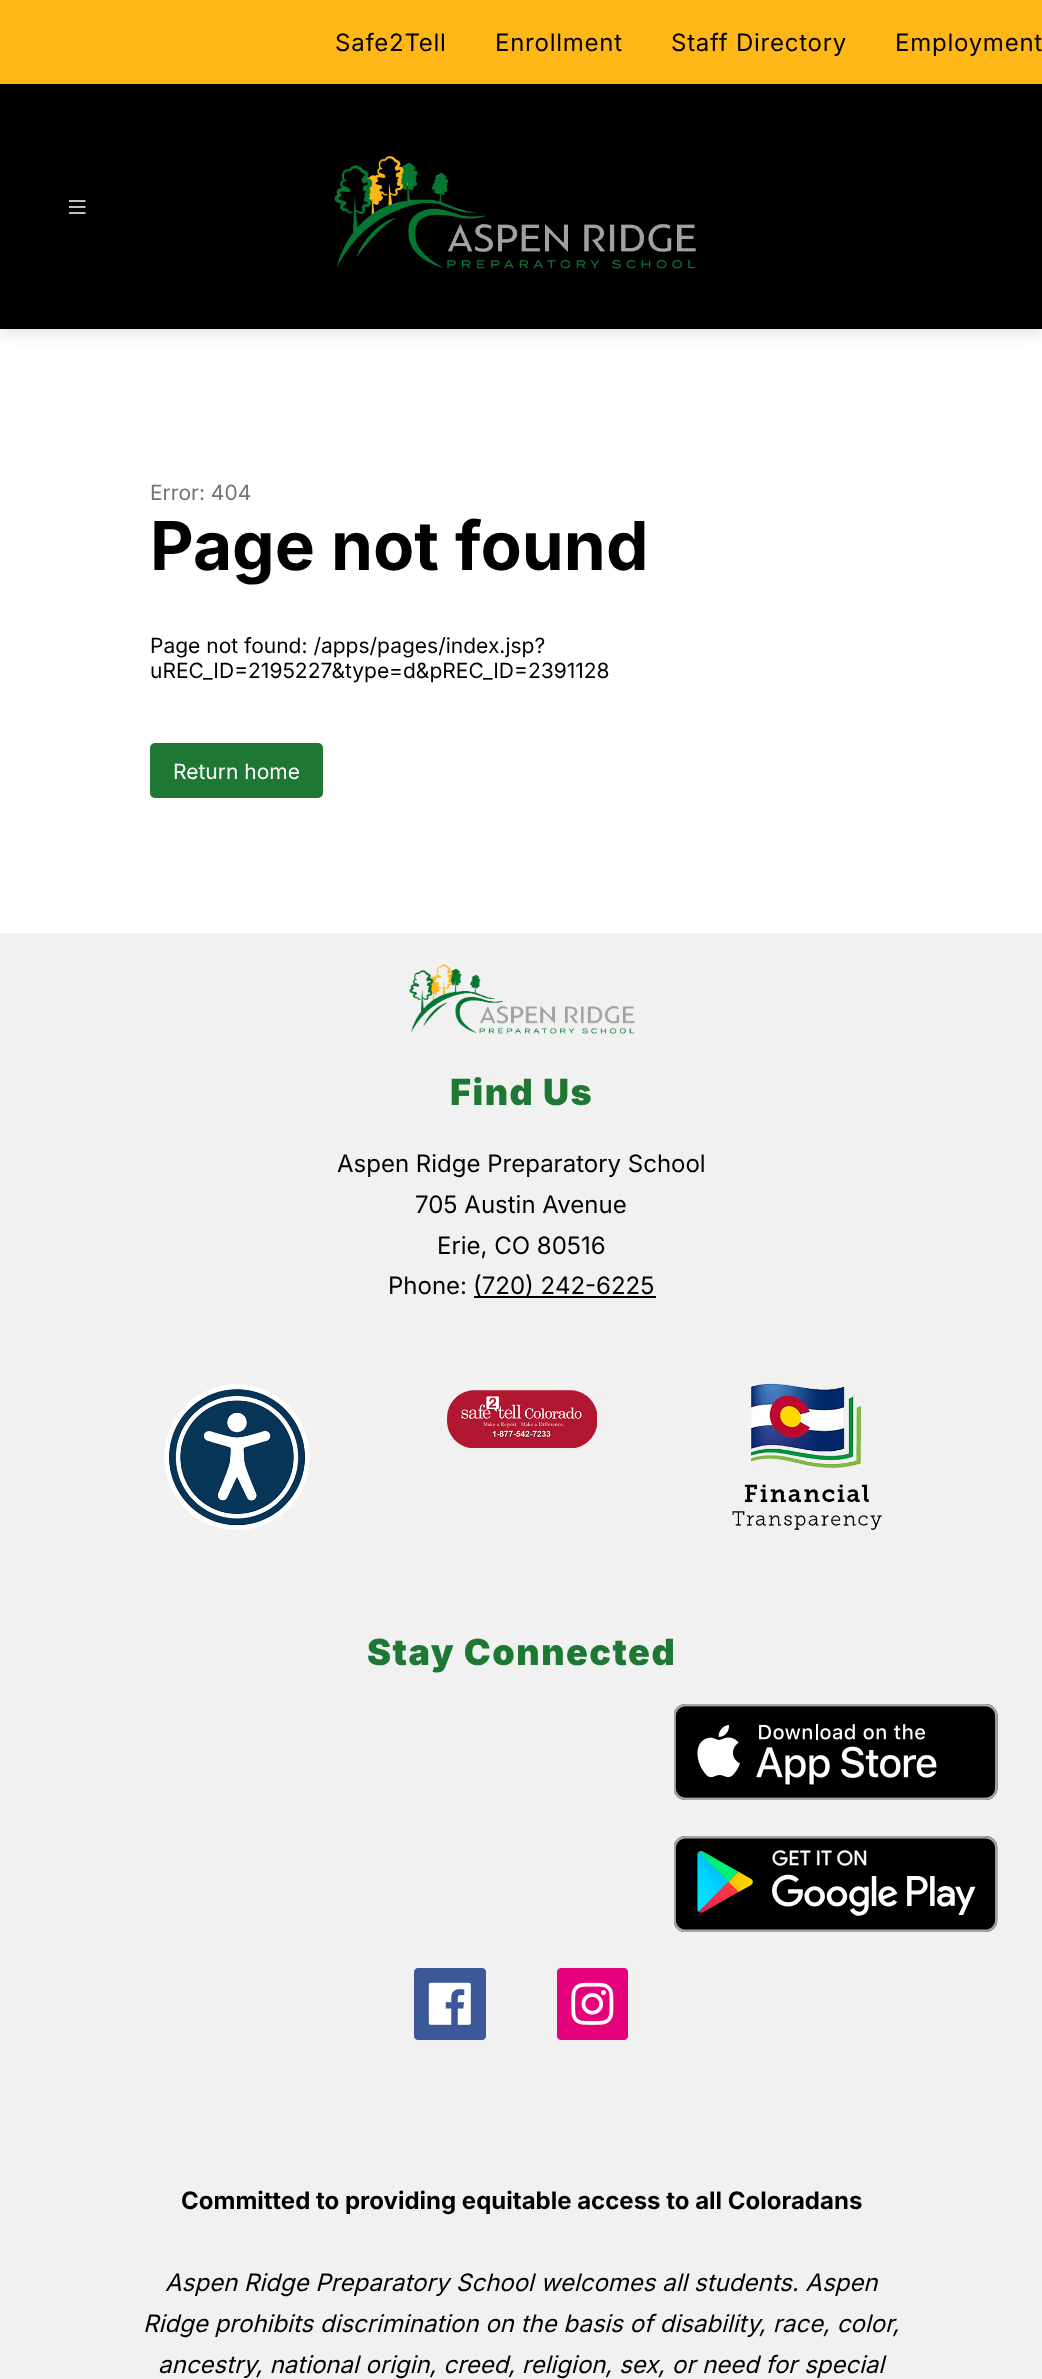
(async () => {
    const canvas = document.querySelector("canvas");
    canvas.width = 1042;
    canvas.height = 2379;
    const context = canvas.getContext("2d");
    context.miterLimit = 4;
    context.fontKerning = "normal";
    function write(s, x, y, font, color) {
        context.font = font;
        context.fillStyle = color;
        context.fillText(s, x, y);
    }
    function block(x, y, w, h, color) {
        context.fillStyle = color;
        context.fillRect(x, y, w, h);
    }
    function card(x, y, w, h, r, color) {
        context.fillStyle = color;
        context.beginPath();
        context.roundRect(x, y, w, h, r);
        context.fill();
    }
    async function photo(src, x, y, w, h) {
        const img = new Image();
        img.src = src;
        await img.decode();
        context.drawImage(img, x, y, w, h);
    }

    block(0, 0, 1042, 2379, "rgb(255, 255, 255)");
    context.fillStyle = "rgba(0, 0, 0, 0.1)";
    context.filter = "blur(7.5px)";
    context.beginPath();
    context.rect(0, 6, 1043, 329);
    context.fill();
    context.filter = "none";
    block(0, 84, 1042, 245, "rgb(0, 0, 0)");
    block(0, 0, 1042, 84, "rgb(254, 183, 23)");
    context.letterSpacing = "0.75px";
    write("Safe2Tell", 335, 51, "24px Inter", "rgb(0, 0, 0)");
    write("Enrollment", 495, 51, "24px Inter", "rgb(0, 0, 0)");
    write("Staff Directory", 671, 51, "24px Inter", "rgb(0, 0, 0)");
    write("Employment", 895, 51, "24px Inter", "rgb(0, 0, 0)");
    await photo("media/1.png", 69, 200, 17, 14);
    await photo("media/2.png", 334, 156, 362, 113);
    context.letterSpacing = "0px";
    write("Error: 404", 150, 500, "21px Inter", "rgb(116, 116, 116)");
    write("Page not found", 150, 570, "bold 67.5px Inter", "rgb(0, 0, 0)");
    write("Page not found: /apps/pages/index.jsp?", 150, 653, "21px Inter", "rgb(0, 0, 0)");
    write("uREC_ID=2195227&type=d&pREC_ID=2391128", 150, 678, "21px Inter", "rgb(0, 0, 0)");
    card(150, 743, 173, 55, 5, "rgb(30, 119, 50)");
    write("Return home", 173, 779, "21px Inter", "rgb(255, 255, 255)");
    block(0, 933, 1042, 1446, "rgb(241, 241, 241)");
    await photo("media/3.png", 409, 964, 226, 70);
    context.letterSpacing = "1.5px";
    write("Find Us", 450, 1105, "900 36px Inter", "rgb(30, 119, 50)");
    context.letterSpacing = "0px";
    write("Aspen Ridge Preparatory School", 337, 1172, "24px Inter", "rgb(0, 0, 0)");
    write("705 Austin Avenue", 415, 1213, "24px Inter", "rgb(0, 0, 0)");
    write("Erie, CO 80516", 437, 1254, "24px Inter", "rgb(0, 0, 0)");
    write("Phone:", 388, 1294, "24px Inter", "rgb(0, 0, 0)");
    block(474, 1296, 182, 2, "rgb(0, 0, 0)");
    write("(720) 242-6225", 473, 1294, "24px Inter", "rgb(0, 0, 0)");
    await photo("media/4.png", 164, 1384, 146, 146);
    await photo("media/5.png", 447, 1390, 150, 58);
    await photo("media/6.png", 732, 1383, 150, 147);
    context.letterSpacing = "1.5px";
    write("Stay Connected", 367, 1665, "900 36px Inter", "rgb(30, 119, 50)");
    await photo("media/7.png", 674, 1704, 324, 96);
    await photo("media/8.png", 674, 1836, 324, 96);
    await photo("media/9.png", 414, 1968, 72, 72);
    await photo("media/10.png", 557, 1968, 71, 72);
    context.letterSpacing = "0px";
    write("Committed to providing equitable access to all Coloradans", 181, 2209, "bold 24px Inter", "rgb(0, 0, 0)");
    write("Aspen Ridge Preparatory School welcomes all students. Aspen", 165, 2291, "italic 24px Inter", "rgb(0, 0, 0)");
    write("Ridge prohibits discrimination on the basis of disability, race, color,", 143, 2332, "italic 24px Inter", "rgb(0, 0, 0)");
    write("ancestry, national origin, creed, religion, sex, or need for special", 158, 2373, "italic 24px Inter", "rgb(0, 0, 0)");
})();
